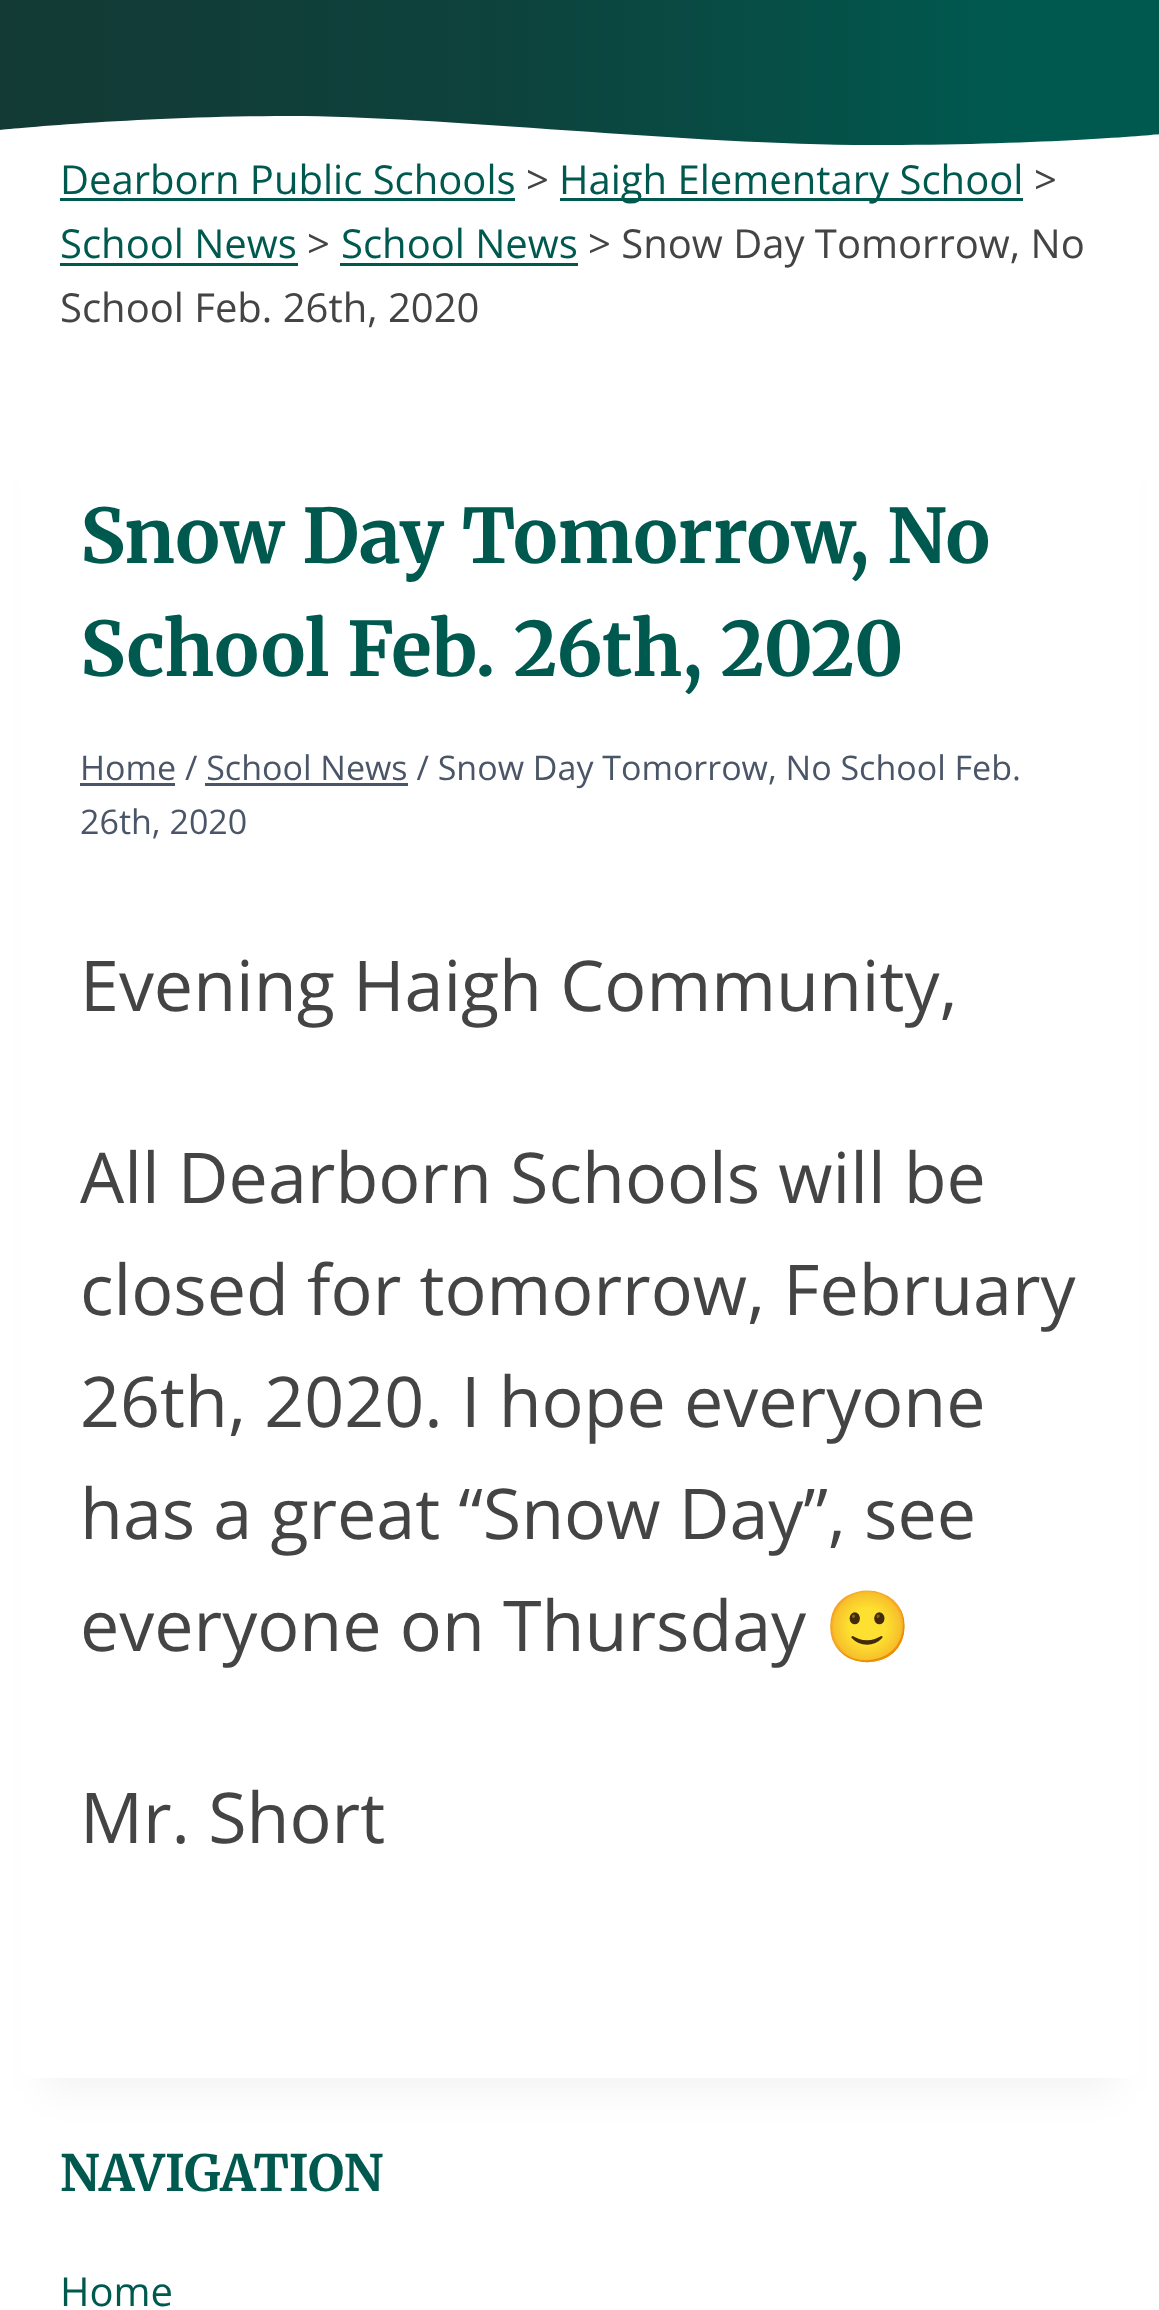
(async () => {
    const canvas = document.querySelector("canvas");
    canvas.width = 1159;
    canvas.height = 2310;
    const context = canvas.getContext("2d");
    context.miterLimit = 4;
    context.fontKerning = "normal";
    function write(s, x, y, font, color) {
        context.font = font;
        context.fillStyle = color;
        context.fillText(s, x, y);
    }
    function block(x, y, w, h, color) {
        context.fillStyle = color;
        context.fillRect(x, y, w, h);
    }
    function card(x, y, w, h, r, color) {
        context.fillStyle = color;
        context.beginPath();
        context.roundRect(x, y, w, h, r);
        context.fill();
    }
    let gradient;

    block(0, 0, 1159, 2310, "rgb(255, 255, 255)");
    gradient = context.createLinearGradient(0, -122, 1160, -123);
    gradient.addColorStop(0, "rgb(19, 58, 53)");
    gradient.addColorStop(0.18, "rgb(17, 61, 56)");
    gradient.addColorStop(0.45, "rgb(13, 67, 61)");
    gradient.addColorStop(0.87, "rgb(0, 89, 79)");
    context.fillStyle = gradient;
    context.fillRect(0, 0, 1159, 145);
    context.fillStyle = "rgb(255, 255, 255)";
    context.beginPath();
    context.moveTo(-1, 130);
    context.bezierCurveTo(-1, 130, 138, 116, 289, 116);
    context.bezierCurveTo(440, 116, 691, 145, 871, 145);
    context.bezierCurveTo(1051, 145, 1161, 134, 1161, 134);
    context.lineTo(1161, 152);
    context.lineTo(-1, 152);
    context.closePath();
    context.fill();
    write("Dearborn Public Schools", 60, 194, "40px Open Sans", "rgb(0, 89, 79)");
    block(60, 198, 455, 3, "rgb(0, 89, 79)");
    write(">", 526, 194, "40px Open Sans", "rgb(68, 68, 68)");
    block(560, 198, 463, 3, "rgb(0, 89, 79)");
    write("Haigh Elementary School", 559, 194, "40px Open Sans", "rgb(0, 89, 79)");
    write(">", 1034, 194, "40px Open Sans", "rgb(68, 68, 68)");
    write("School News", 60, 258, "40px Open Sans", "rgb(0, 89, 79)");
    block(60, 263, 238, 3, "rgb(0, 89, 79)");
    write(">", 307, 258, "40px Open Sans", "rgb(68, 68, 68)");
    write("School News", 341, 258, "40px Open Sans", "rgb(0, 89, 79)");
    block(340, 263, 238, 3, "rgb(0, 89, 79)");
    write("> Snow Day Tomorrow, No", 588, 258, "40px Open Sans", "rgb(68, 68, 68)");
    write("School Feb. 26th, 2020", 60, 322, "40px Open Sans", "rgb(68, 68, 68)");
    context.fillStyle = "rgba(0, 0, 0, 0.05)";
    context.filter = "blur(19px)";
    context.beginPath();
    context.rect(45, 483, 1070, 1607);
    context.fill();
    context.filter = "none";
    card(20, 420, 1120, 1658, 10, "rgb(255, 255, 255)");
    write("Snow Day Tomorrow, No", 80, 563, "300 75px Merriweather", "rgb(0, 89, 79)");
    write("School Feb. 26th, 2020", 80, 676, "300 75px Merriweather", "rgb(0, 89, 79)");
    block(80, 783, 95, 3, "rgb(74, 85, 104)");
    write("Home / School News / Snow Day Tomorrow, No School Feb.", 80, 780, "34px Open Sans", "rgb(74, 85, 104)");
    block(205, 783, 203, 3, "rgb(74, 85, 104)");
    write("26th, 2020", 80, 834, "34px Open Sans", "rgb(74, 85, 104)");
    write("Evening Haigh Community,", 80, 1011, "70px Open Sans", "rgb(68, 68, 68)");
    write("All Dearborn Schools will be", 80, 1203, "70px Open Sans", "rgb(68, 68, 68)");
    write("closed for tomorrow, February", 80, 1315, "70px Open Sans", "rgb(68, 68, 68)");
    write("26th, 2020. I hope everyone", 80, 1427, "70px Open Sans", "rgb(68, 68, 68)");
    write("has a great “Snow Day”, see", 80, 1539, "70px Open Sans", "rgb(68, 68, 68)");
    write("everyone on Thursday", 80, 1651, "70px Open Sans", "rgb(68, 68, 68)");
    write("🙂", 824, 1651, "70px Noto Color Emoji", "rgb(68, 68, 68)");
    write("Mr. Short", 80, 1843, "70px Open Sans", "rgb(68, 68, 68)");
    write("NAVIGATION", 60, 2191, "300 50px Merriweather", "rgb(0, 89, 79)");
    write("Home", 60, 2306, "40px Open Sans", "rgb(0, 89, 79)");
})();
